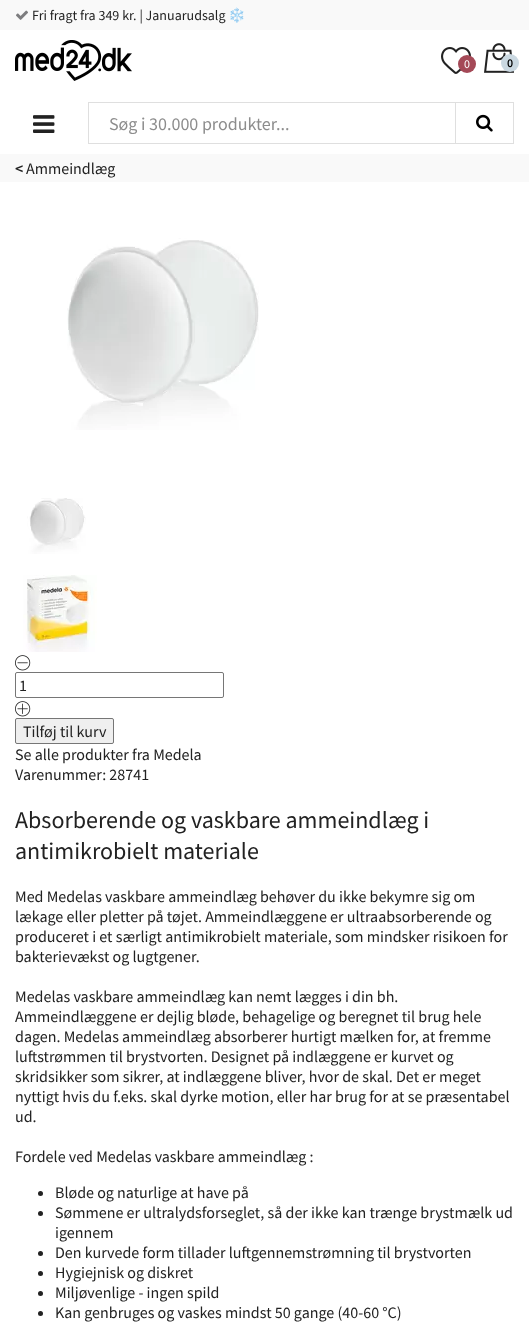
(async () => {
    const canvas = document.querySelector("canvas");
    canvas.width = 529;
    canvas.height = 1327;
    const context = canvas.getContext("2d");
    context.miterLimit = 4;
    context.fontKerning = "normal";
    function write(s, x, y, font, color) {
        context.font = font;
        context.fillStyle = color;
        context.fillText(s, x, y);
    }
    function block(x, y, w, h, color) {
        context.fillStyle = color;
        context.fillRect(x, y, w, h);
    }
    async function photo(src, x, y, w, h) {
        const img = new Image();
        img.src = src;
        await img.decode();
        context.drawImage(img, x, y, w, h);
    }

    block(0, 0, 529, 1327, "rgb(255, 255, 255)");
    block(0, 0, 529, 30, "rgb(249, 249, 249)");
    await photo("media/1.png", 16, 10, 12, 10);
    write("Fri fragt fra 349 kr. | Januarudsalg", 32, 20, "14px Source Sans Pro", "rgb(34, 34, 34)");
    write("❄️", 228, 20, "14px Noto Color Emoji", "rgb(34, 34, 34)");
    await photo("media/2.png", 15, 40, 117, 41);
    await photo("media/3.png", 441, 47, 30, 27);
    context.fillStyle = "rgb(164, 73, 87)";
    context.beginPath();
    context.arc(467, 64, 9, 0, Math.PI * 2);
    context.fill();
    write("0", 464, 68, "12px Source Sans Pro", "rgb(255, 255, 255)");
    await photo("media/4.png", 484, 43, 30, 30);
    context.fillStyle = "rgb(202, 216, 225)";
    context.beginPath();
    context.arc(510, 63, 9, 0, Math.PI * 2);
    context.fill();
    write("0", 507, 67, "600 12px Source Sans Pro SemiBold", "rgb(0, 0, 0)");
    await photo("media/5.png", 33, 115, 22, 18);
    context.strokeStyle = "rgb(223, 223, 223)";
    context.strokeRect(88.5, 102.5, 367, 41);
    write("Søg i 30.000 produkter...", 109, 130, "18px Source Sans Pro", "rgb(141, 141, 141)");
    context.strokeRect(455.5, 102.5, 58, 41);
    await photo("media/6.png", 476, 114, 17, 18);
    block(0, 154, 529, 28, "rgb(249, 249, 249)");
    write("<", 15, 174, "600 16px Source Sans Pro SemiBold", "rgb(34, 34, 34)");
    write("Ammeindlæg", 26, 174, "16px Source Sans Pro", "rgb(34, 34, 34)");
    await photo("media/7.png", 67, 238, 192, 192);
    await photo("media/8.png", 27, 498, 59, 56);
    await photo("media/9.png", 23, 575, 74, 77);
    await photo("media/10.png", 15, 655, 16, 16);
    context.beginPath();
    context.roundRect(15.5, 672.5, 208, 25, 1.5);
    context.strokeStyle = "rgb(118, 118, 118)";
    context.stroke();
    write("1", 19, 691, "16px Source Sans Pro", "rgb(34, 34, 34)");
    await photo("media/11.png", 15, 701, 16, 16);
    context.fillStyle = "rgb(239, 239, 239)";
    context.beginPath();
    context.roundRect(15.5, 718.5, 98, 25, 1.5);
    context.fill();
    context.stroke();
    write("Tilføj til kurv", 23, 737, "16px Source Sans Pro", "rgb(34, 34, 34)");
    write("Se alle produkter fra Medela", 15, 760, "16px Source Sans Pro", "rgb(34, 34, 34)");
    write("Varenummer: 28741", 15, 780, "16px Source Sans Pro", "rgb(34, 34, 34)");
    write("Absorberende og vaskbare ammeindlæg i", 15, 828, "24px Source Sans Pro", "rgb(34, 34, 34)");
    write("antimikrobielt materiale", 15, 859, "24px Source Sans Pro", "rgb(34, 34, 34)");
    write("Med Medelas vaskbare ammeindlæg behøver du ikke bekymre sig om", 15, 902, "16px Source Sans Pro", "rgb(34, 34, 34)");
    write("lækage eller pletter på tøjet. Ammeindlæggene er ultraabsorberende og", 15, 922, "16px Source Sans Pro", "rgb(34, 34, 34)");
    write("produceret i et særligt antimikrobielt materiale, som mindsker risikoen for", 15, 942, "16px Source Sans Pro", "rgb(34, 34, 34)");
    write("bakterievækst og lugtgener.", 15, 962, "16px Source Sans Pro", "rgb(34, 34, 34)");
    write("Medelas vaskbare ammeindlæg kan nemt lægges i din bh.", 15, 1002, "16px Source Sans Pro", "rgb(34, 34, 34)");
    write("Ammeindlæggene er dejlig bløde, behagelige og beregnet til brug hele", 15, 1022, "16px Source Sans Pro", "rgb(34, 34, 34)");
    write("dagen. Medelas ammeindlæg absorberer hurtigt mælken for, at fremme", 15, 1042, "16px Source Sans Pro", "rgb(34, 34, 34)");
    write("luftstrømmen til brystvorten. Designet på indlæggene er kurvet og", 15, 1062, "16px Source Sans Pro", "rgb(34, 34, 34)");
    write("skridsikker som sikrer, at indlæggene bliver, hvor de skal. Det er meget", 15, 1082, "16px Source Sans Pro", "rgb(34, 34, 34)");
    write("nyttigt hvis du f.eks. skal dyrke motion, eller har brug for at se præsentabel", 15, 1102, "16px Source Sans Pro", "rgb(34, 34, 34)");
    write("ud.", 15, 1122, "16px Source Sans Pro", "rgb(34, 34, 34)");
    write("Fordele ved Medelas vaskbare ammeindlæg :", 15, 1162, "16px Source Sans Pro", "rgb(34, 34, 34)");
    context.beginPath();
    context.arc(40.5, 1193.5, 2.5, 0, Math.PI * 2);
    context.fill();
    write("Bløde og naturlige at have på", 55, 1198, "16px Source Sans Pro", "rgb(34, 34, 34)");
    context.beginPath();
    context.arc(40.5, 1213.5, 2.5, 0, Math.PI * 2);
    context.fill();
    write("Sømmene er ultralydsforseglet, så der ikke kan trænge brystmælk ud", 55, 1218, "16px Source Sans Pro", "rgb(34, 34, 34)");
    write("igennem", 55, 1238, "16px Source Sans Pro", "rgb(34, 34, 34)");
    context.beginPath();
    context.arc(40.5, 1253.5, 2.5, 0, Math.PI * 2);
    context.fill();
    write("Den kurvede form tillader luftgennemstrømning til brystvorten", 55, 1258, "16px Source Sans Pro", "rgb(34, 34, 34)");
    context.beginPath();
    context.arc(40.5, 1273.5, 2.5, 0, Math.PI * 2);
    context.fill();
    write("Hygiejnisk og diskret", 55, 1278, "16px Source Sans Pro", "rgb(34, 34, 34)");
    context.beginPath();
    context.arc(40.5, 1293.5, 2.5, 0, Math.PI * 2);
    context.fill();
    write("Miljøvenlige - ingen spild", 55, 1298, "16px Source Sans Pro", "rgb(34, 34, 34)");
    context.beginPath();
    context.arc(40.5, 1313.5, 2.5, 0, Math.PI * 2);
    context.fill();
    write("Kan genbruges og vaskes mindst 50 gange (40-60 °C)", 55, 1318, "16px Source Sans Pro", "rgb(34, 34, 34)");
})();
